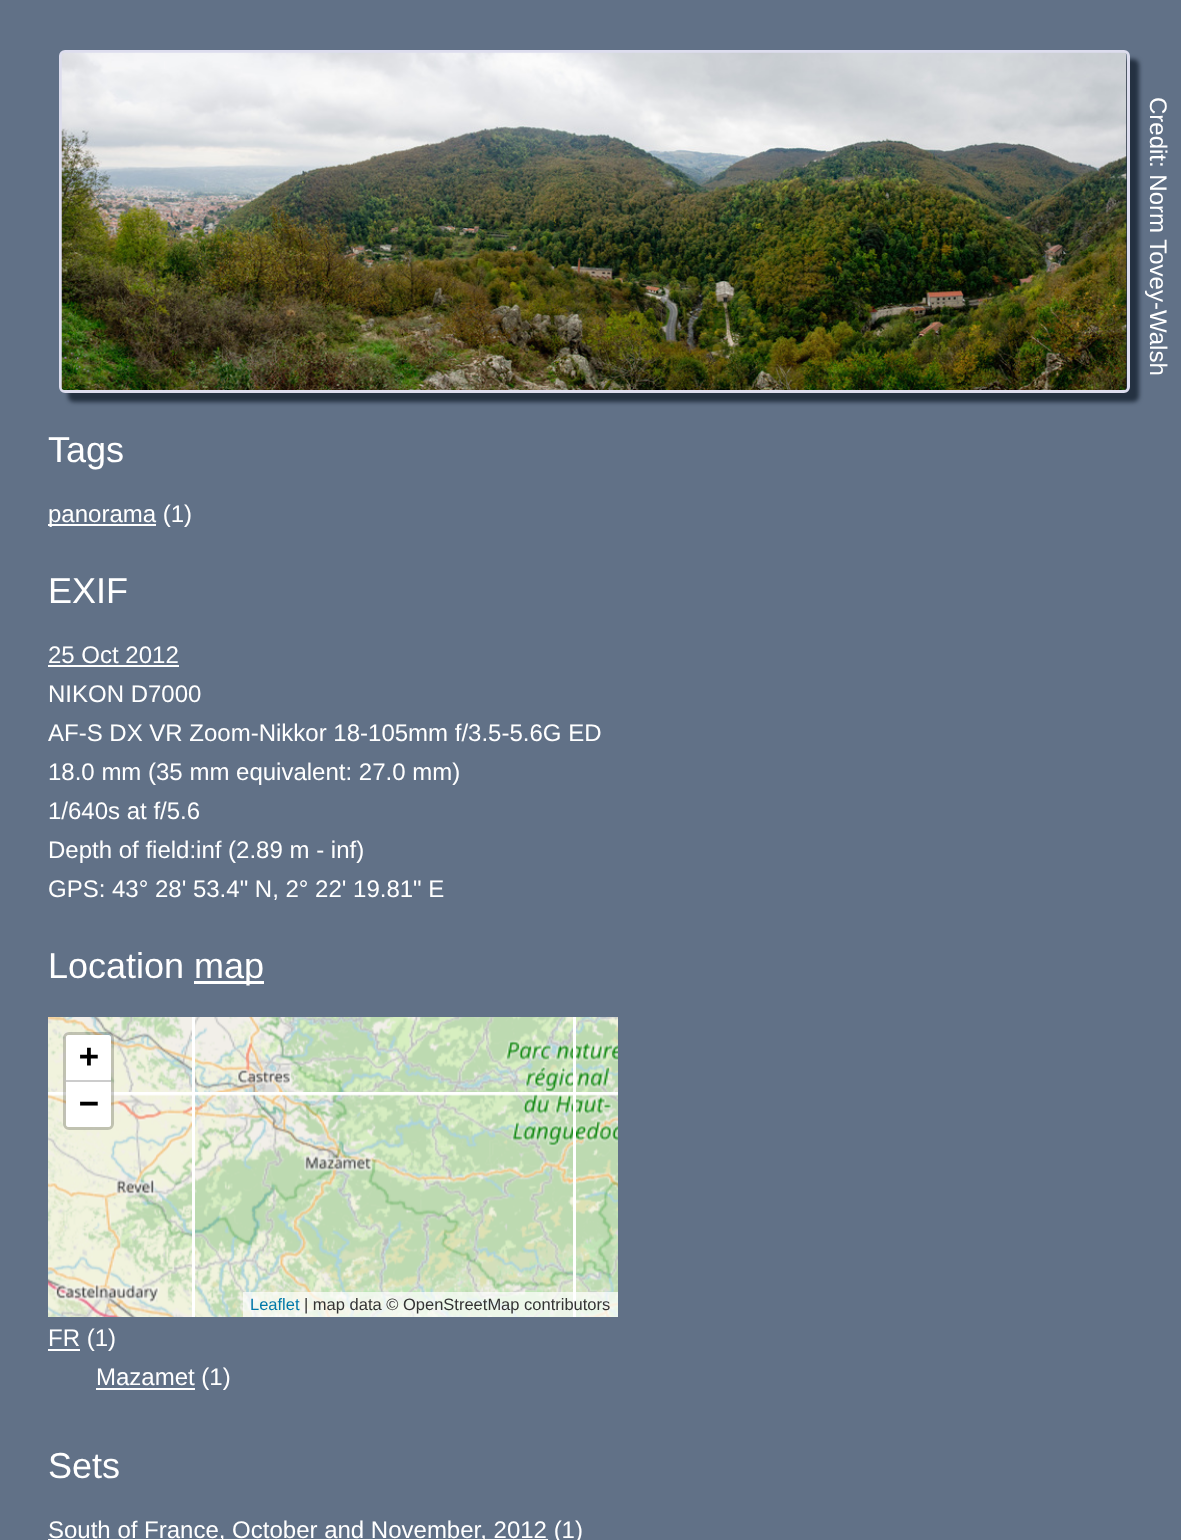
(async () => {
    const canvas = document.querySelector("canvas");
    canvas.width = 1181;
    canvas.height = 1540;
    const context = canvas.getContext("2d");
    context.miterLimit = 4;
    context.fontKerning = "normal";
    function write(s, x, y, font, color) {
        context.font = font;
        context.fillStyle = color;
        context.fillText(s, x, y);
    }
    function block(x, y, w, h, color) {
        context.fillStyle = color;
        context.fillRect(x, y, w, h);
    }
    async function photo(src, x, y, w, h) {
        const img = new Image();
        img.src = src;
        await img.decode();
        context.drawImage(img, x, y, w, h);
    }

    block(0, 0, 1181, 1540, "rgb(97, 113, 135)");
    context.fillStyle = "rgb(36, 49, 65)";
    context.filter = "blur(2px)";
    context.beginPath();
    context.roundRect(68, 59, 1071, 343, 6);
    context.fill();
    context.filter = "none";
    context.beginPath();
    context.roundRect(60.5, 51.5, 1068, 340, 4.5);
    context.strokeStyle = "rgb(221, 221, 238)";
    context.lineWidth = 3;
    context.stroke();
    await photo("media/1.png", 61, 52, 1066, 338);
    context.font = "24px Liberation Sans";
    context.fillStyle = "rgb(255, 255, 255)";
    context.save();
    context.translate(1150, 97);
    context.rotate(90 * Math.PI / 180);
    context.fillText("Credit: Norm Tovey-Walsh", 0, 0);
    context.restore();
    write("Tags", 48, 462, "36px Liberation Sans", "rgb(255, 255, 255)");
    block(48, 524, 108, 2, "rgb(255, 255, 255)");
    write("panorama (1)", 48, 522, "24px Liberation Sans", "rgb(255, 255, 255)");
    write("EXIF", 48, 603, "36px Liberation Sans", "rgb(255, 255, 255)");
    write("25 Oct 2012", 48, 663, "24px Liberation Sans", "rgb(255, 255, 255)");
    block(48, 665, 131, 2, "rgb(255, 255, 255)");
    write("NIKON D7000", 48, 702, "24px Liberation Sans", "rgb(255, 255, 255)");
    write("AF-S DX VR Zoom-Nikkor 18-105mm f/3.5-5.6G ED", 48, 741, "24px Liberation Sans", "rgb(255, 255, 255)");
    write("18.0 mm (35 mm equivalent: 27.0 mm)", 48, 780, "24px Liberation Sans", "rgb(255, 255, 255)");
    write("1/640s at f/5.6", 48, 819, "24px Liberation Sans", "rgb(255, 255, 255)");
    write("Depth of field:inf (2.89 m - inf)", 48, 858, "24px Liberation Sans", "rgb(255, 255, 255)");
    write("GPS: 43° 28' 53.4\" N, 2° 22' 19.81\" E", 48, 897, "24px Liberation Sans", "rgb(255, 255, 255)");
    write("Location", 48, 978, "36px Liberation Sans", "rgb(255, 255, 255)");
    block(194, 981, 70, 3, "rgb(255, 255, 255)");
    write("map", 194, 978, "36px Liberation Sans", "rgb(255, 255, 255)");
    context.save();
    context.beginPath();
    context.rect(48, 1017, 570, 300);
    context.clip();
    context.beginPath();
    context.roundRect(190.5, 709.5, 387, 387, 1.5);
    context.strokeStyle = "rgb(255, 255, 255)";
    context.stroke();
    context.restore();
    await photo("media/3.png", 195, 1017, 378, 79);
    block(96, 1388, 99, 2, "rgb(255, 255, 255)");
    context.save();
    context.beginPath();
    context.rect(48, 1017, 570, 300);
    context.clip();
    context.beginPath();
    context.roundRect(190.5, 1093.5, 387, 387, 1.5);
    context.strokeStyle = "rgb(255, 255, 255)";
    context.stroke();
    context.beginPath();
    context.roundRect(-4.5, 709.5, 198, 387, 1.5);
    context.stroke();
    context.restore();
    await photo("media/2.png", 48, 1017, 144, 79);
    context.save();
    context.beginPath();
    context.rect(48, 1017, 570, 300);
    context.clip();
    context.beginPath();
    context.roundRect(574.5, 709.5, 387, 387, 1.5);
    context.strokeStyle = "rgb(255, 255, 255)";
    context.stroke();
    context.restore();
    await photo("media/4.png", 576, 1017, 42, 79);
    block(48, 1349, 32, 2, "rgb(255, 255, 255)");
    context.save();
    context.beginPath();
    context.rect(48, 1017, 570, 300);
    context.clip();
    context.beginPath();
    context.roundRect(-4.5, 1093.5, 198, 387, 1.5);
    context.strokeStyle = "rgb(255, 255, 255)";
    context.stroke();
    context.restore();
    await photo("media/5.png", 48, 1094, 144, 223);
    await photo("media/6.png", 195, 1094, 378, 223);
    context.save();
    context.beginPath();
    context.rect(48, 1017, 570, 300);
    context.clip();
    context.beginPath();
    context.roundRect(574.5, 1093.5, 387, 387, 1.5);
    context.strokeStyle = "rgb(255, 255, 255)";
    context.stroke();
    context.restore();
    await photo("media/7.png", 576, 1094, 42, 223);
    context.beginPath();
    context.roundRect(64.5, 1033.5, 48, 95, 4.5);
    context.strokeStyle = "rgba(0, 0, 0, 0.2)";
    context.stroke();
    context.beginPath();
    context.roundRect(66, 1035, 45, 47, [3, 3, 0, 0]);
    context.fill();
    block(66, 1080, 45, 2, "rgb(204, 204, 204)");
    write("+", 79, 1067, "bold 33px DejaVu Sans Mono", "rgb(0, 0, 0)");
    context.fillStyle = "rgb(255, 255, 255)";
    context.beginPath();
    context.roundRect(66, 1082, 45, 45, [0, 0, 3, 3]);
    context.fill();
    write("−", 79, 1114, "bold 33px DejaVu Sans Mono", "rgb(0, 0, 0)");
    block(243, 1292, 375, 25, "rgba(255, 255, 255, 0.7)");
    write("Leaflet", 250, 1310, "16.5px Liberation Sans", "rgb(0, 120, 168)");
    write("| map data © OpenStreetMap contributors", 304, 1310, "16.5px Liberation Sans", "rgb(51, 51, 51)");
    write("FR (1)", 48, 1346, "24px Liberation Sans", "rgb(255, 255, 255)");
    write("Mazamet (1)", 96, 1385, "24px Liberation Sans", "rgb(255, 255, 255)");
    write("Sets", 48, 1478, "36px Liberation Sans", "rgb(255, 255, 255)");
    block(48, 1539, 500, 1, "rgb(255, 255, 255)");
    write("South of France, October and November, 2012 (1)", 48, 1538, "24px Liberation Sans", "rgb(255, 255, 255)");
})();
